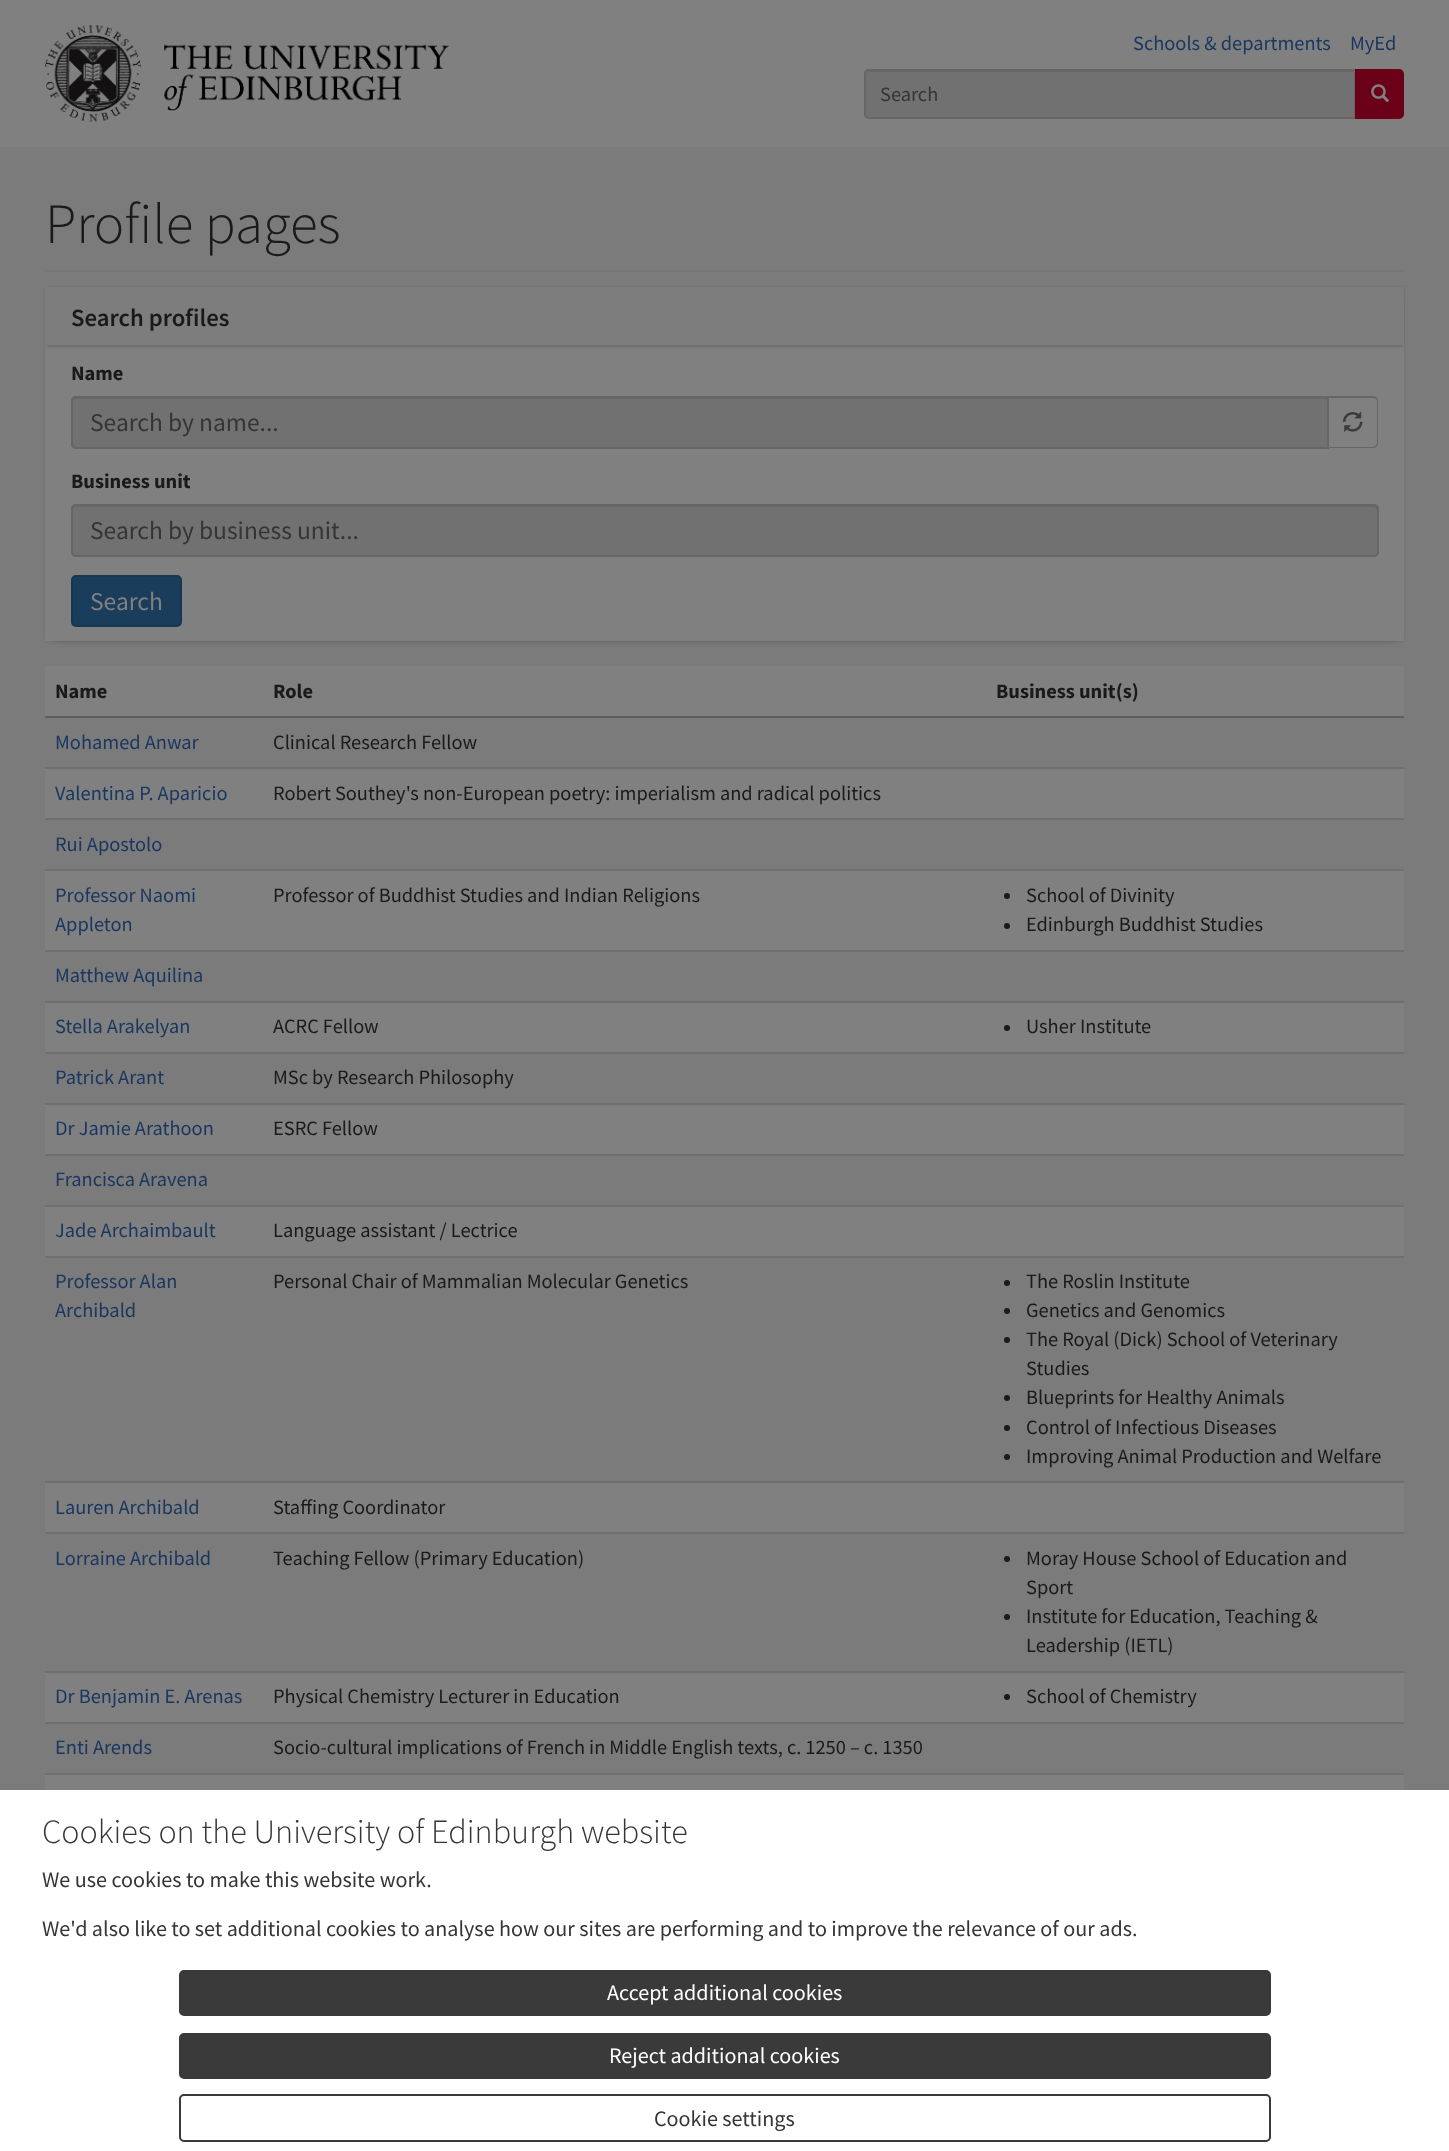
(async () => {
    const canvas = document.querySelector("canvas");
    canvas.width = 1449;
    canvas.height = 2151;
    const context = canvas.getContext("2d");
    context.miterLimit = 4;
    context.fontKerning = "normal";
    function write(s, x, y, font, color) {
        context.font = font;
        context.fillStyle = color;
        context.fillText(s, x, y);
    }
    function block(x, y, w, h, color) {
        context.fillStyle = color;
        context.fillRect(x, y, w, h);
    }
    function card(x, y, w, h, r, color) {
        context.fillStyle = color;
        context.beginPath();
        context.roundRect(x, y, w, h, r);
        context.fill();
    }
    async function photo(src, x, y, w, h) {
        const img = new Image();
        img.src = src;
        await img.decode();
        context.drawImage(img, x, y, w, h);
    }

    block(0, 0, 1449, 2151, "rgb(123, 123, 123)");
    block(0, 0, 1449, 147, "rgb(128, 128, 128)");
    await photo("media/1.png", 45, 25, 404, 97);
    write("Schools & departments", 1133, 50, "20.4px Source Sans Pro", "rgb(26, 55, 96)");
    write("MyEd", 1350, 50, "20.4px Source Sans Pro", "rgb(26, 55, 96)");
    context.fillStyle = "rgb(113, 113, 113)";
    context.beginPath();
    context.roundRect(864, 69, 492, 50, [5, 0, 0, 5]);
    context.fill();
    context.fillStyle = "rgb(104, 104, 104)";
    context.beginPath();
    context.moveTo(869, 72);
    context.lineTo(1354, 72);
    context.lineTo(1354, 117);
    context.lineTo(1355, 117);
    context.lineTo(1355, 71);
    context.lineTo(870, 71);
    context.bezierCurveTo(867, 71, 866, 73, 866, 76);
    context.bezierCurveTo(866, 74, 867, 72, 869, 72);
    context.closePath();
    context.fill();
    context.beginPath();
    context.roundRect(865, 70, 490, 48, [4, 0, 0, 4]);
    context.strokeStyle = "rgb(102, 102, 102)";
    context.lineWidth = 2;
    context.stroke();
    write("Search", 880, 101, "20.4px Source Sans Pro", "rgb(53, 53, 53)");
    context.fillStyle = "rgb(107, 0, 25)";
    context.beginPath();
    context.roundRect(1356, 70, 47, 48, [0, 4, 4, 0]);
    context.fill();
    context.strokeStyle = "rgb(107, 0, 25)";
    context.stroke();
    await photo("media/2.png", 1371, 84, 18, 19);
    block(45, 270, 1359, 2, "rgb(119, 119, 119)");
    write("Profile pages", 45, 243, "300 57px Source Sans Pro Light", "rgb(26, 26, 26)");
    context.fillStyle = "rgba(0, 0, 0, 0.1)";
    context.filter = "blur(1px)";
    context.beginPath();
    context.rect(45, 287, 1359, 354);
    context.fill();
    context.filter = "none";
    context.fillStyle = "rgba(0, 0, 0, 0.3)";
    context.filter = "blur(4.5px)";
    context.beginPath();
    context.rect(53, 300, 1344, 339);
    context.fill();
    context.filter = "none";
    block(45, 345, 1359, 296, "rgb(128, 128, 128)");
    context.fillStyle = "rgba(0, 0, 0, 0.15)";
    context.filter = "blur(1px)";
    context.beginPath();
    context.rect(47, 291, 1356, 56);
    context.fill();
    context.filter = "none";
    block(45, 287, 1359, 58, "rgb(125, 125, 125)");
    write("Search profiles", 71, 326, "600 24.75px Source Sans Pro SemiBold", "rgb(26, 26, 26)");
    write("Name", 71, 380, "bold 20.4px Source Sans Pro", "rgb(26, 26, 26)");
    context.fillStyle = "rgb(113, 113, 113)";
    context.beginPath();
    context.roundRect(71, 396, 1258, 53, [5, 0, 0, 5]);
    context.fill();
    context.fillStyle = "rgb(104, 104, 104)";
    context.beginPath();
    context.moveTo(76, 399);
    context.lineTo(1328, 399);
    context.lineTo(1328, 398);
    context.lineTo(76, 398);
    context.bezierCurveTo(73, 398, 72, 400, 72, 403);
    context.bezierCurveTo(72, 401, 74, 399, 76, 399);
    context.closePath();
    context.fill();
    context.beginPath();
    context.roundRect(72, 397, 1256, 51, [4, 0, 0, 4]);
    context.strokeStyle = "rgb(102, 102, 102)";
    context.stroke();
    write("Search by name...", 90, 431, "25.5px Source Sans Pro", "rgb(53, 53, 53)");
    context.fillStyle = "rgb(102, 102, 102)";
    context.beginPath();
    context.moveTo(1329, 396);
    context.lineTo(1373, 396);
    context.bezierCurveTo(1376, 396, 1378, 398, 1378, 401);
    context.lineTo(1378, 443);
    context.bezierCurveTo(1378, 446, 1376, 448, 1373, 448);
    context.lineTo(1329, 448);
    context.closePath();
    context.moveTo(1329, 398);
    context.lineTo(1373, 398);
    context.bezierCurveTo(1375, 398, 1377, 399, 1377, 401);
    context.lineTo(1377, 443);
    context.bezierCurveTo(1377, 445, 1375, 447, 1373, 447);
    context.lineTo(1329, 447);
    context.closePath();
    context.fill("evenodd");
    await photo("media/3.png", 1342, 411, 21, 21);
    write("Business unit", 71, 488, "bold 20.4px Source Sans Pro", "rgb(26, 26, 26)");
    card(71, 504, 1308, 53, 5, "rgb(113, 113, 113)");
    context.fillStyle = "rgb(104, 104, 104)";
    context.beginPath();
    context.moveTo(76, 507);
    context.lineTo(1373, 507);
    context.bezierCurveTo(1375, 507, 1377, 509, 1377, 511);
    context.lineTo(1377, 510);
    context.bezierCurveTo(1377, 508, 1375, 506, 1373, 506);
    context.lineTo(76, 506);
    context.bezierCurveTo(74, 506, 72, 508, 72, 510);
    context.lineTo(72, 511);
    context.bezierCurveTo(72, 509, 74, 507, 76, 507);
    context.closePath();
    context.fill();
    context.beginPath();
    context.roundRect(72, 505, 1306, 51, 4);
    context.stroke();
    write("Search by business unit...", 90, 539, "25.5px Source Sans Pro", "rgb(53, 53, 53)");
    context.fillStyle = "rgb(26, 61, 92)";
    context.beginPath();
    context.roundRect(72, 576, 109, 50, 4);
    context.fill();
    context.strokeStyle = "rgb(23, 55, 82)";
    context.stroke();
    write("Search", 90, 610, "25.5px Source Sans Pro", "rgb(128, 128, 128)");
    block(45, 666, 1359, 50, "rgb(128, 128, 128)");
    write("Name", 55, 698, "bold 20.4px Source Sans Pro", "rgb(26, 26, 26)");
    write("Role", 273, 698, "bold 20.4px Source Sans Pro", "rgb(26, 26, 26)");
    block(45, 716, 1359, 2, "rgb(94, 94, 94)");
    write("Business unit(s)", 996, 698, "bold 20.4px Source Sans Pro", "rgb(26, 26, 26)");
    write("Mohamed Anwar", 55, 749, "20.4px Source Sans Pro", "rgb(26, 55, 96)");
    write("Clinical Research Fellow", 273, 749, "20.4px Source Sans Pro", "rgb(26, 26, 26)");
    block(45, 769, 1359, 49, "rgb(128, 128, 128)");
    block(45, 767, 1359, 2, "rgb(111, 111, 111)");
    write("Valentina P. Aparicio", 55, 800, "20.4px Source Sans Pro", "rgb(26, 55, 96)");
    write("Robert Southey's non-European poetry: imperialism and radical politics", 273, 800, "20.4px Source Sans Pro", "rgb(26, 26, 26)");
    block(45, 818, 1359, 2, "rgb(111, 111, 111)");
    write("Rui Apostolo", 55, 851, "20.4px Source Sans Pro", "rgb(26, 55, 96)");
    block(45, 871, 1359, 79, "rgb(128, 128, 128)");
    write("Professor Naomi", 55, 902, "20.4px Source Sans Pro", "rgb(26, 55, 96)");
    write("Appleton", 55, 931, "20.4px Source Sans Pro", "rgb(26, 55, 96)");
    write("Professor of Buddhist Studies and Indian Religions", 273, 902, "20.4px Source Sans Pro", "rgb(26, 26, 26)");
    block(45, 869, 1359, 2, "rgb(111, 111, 111)");
    context.fillStyle = "rgb(26, 26, 26)";
    context.beginPath();
    context.arc(1007, 896, 3, 0, Math.PI * 2);
    context.fill();
    write("School of Divinity", 1026, 902, "20.4px Source Sans Pro", "rgb(26, 26, 26)");
    context.beginPath();
    context.arc(1007, 926, 3, 0, Math.PI * 2);
    context.fill();
    write("Edinburgh Buddhist Studies", 1026, 931, "20.4px Source Sans Pro", "rgb(26, 26, 26)");
    block(45, 950, 1359, 2, "rgb(111, 111, 111)");
    write("Matthew Aquilina", 55, 982, "20.4px Source Sans Pro", "rgb(26, 55, 96)");
    block(45, 1003, 1359, 49, "rgb(128, 128, 128)");
    write("Stella Arakelyan", 55, 1033, "20.4px Source Sans Pro", "rgb(26, 55, 96)");
    write("ACRC Fellow", 273, 1033, "20.4px Source Sans Pro", "rgb(26, 26, 26)");
    block(45, 1001, 1359, 2, "rgb(111, 111, 111)");
    context.fillStyle = "rgb(26, 26, 26)";
    context.beginPath();
    context.arc(1007, 1028, 3, 0, Math.PI * 2);
    context.fill();
    write("Usher Institute", 1026, 1033, "20.4px Source Sans Pro", "rgb(26, 26, 26)");
    block(45, 1052, 1359, 2, "rgb(111, 111, 111)");
    write("Patrick Arant", 55, 1084, "20.4px Source Sans Pro", "rgb(26, 55, 96)");
    write("MSc by Research Philosophy", 273, 1084, "20.4px Source Sans Pro", "rgb(26, 26, 26)");
    block(45, 1105, 1359, 49, "rgb(128, 128, 128)");
    block(45, 1103, 1359, 2, "rgb(111, 111, 111)");
    write("Dr Jamie Arathoon", 55, 1135, "20.4px Source Sans Pro", "rgb(26, 55, 96)");
    write("ESRC Fellow", 273, 1135, "20.4px Source Sans Pro", "rgb(26, 26, 26)");
    block(45, 1154, 1359, 2, "rgb(111, 111, 111)");
    write("Francisca Aravena", 55, 1186, "20.4px Source Sans Pro", "rgb(26, 55, 96)");
    block(45, 1207, 1359, 49, "rgb(128, 128, 128)");
    block(45, 1205, 1359, 2, "rgb(111, 111, 111)");
    write("Jade Archaimbault", 55, 1237, "20.4px Source Sans Pro", "rgb(26, 55, 96)");
    write("Language assistant / Lectrice", 273, 1237, "20.4px Source Sans Pro", "rgb(26, 26, 26)");
    write("Professor Alan", 55, 1288, "20.4px Source Sans Pro", "rgb(26, 55, 96)");
    write("Archibald", 55, 1317, "20.4px Source Sans Pro", "rgb(26, 55, 96)");
    write("Personal Chair of Mammalian Molecular Genetics", 273, 1288, "20.4px Source Sans Pro", "rgb(26, 26, 26)");
    block(45, 1256, 1359, 2, "rgb(111, 111, 111)");
    context.fillStyle = "rgb(26, 26, 26)";
    context.beginPath();
    context.arc(1007, 1283, 3, 0, Math.PI * 2);
    context.fill();
    write("The Roslin Institute", 1026, 1288, "20.4px Source Sans Pro", "rgb(26, 26, 26)");
    context.beginPath();
    context.arc(1007, 1311, 3, 0, Math.PI * 2);
    context.fill();
    write("Genetics and Genomics", 1026, 1317, "20.4px Source Sans Pro", "rgb(26, 26, 26)");
    context.beginPath();
    context.arc(1007, 1340, 3, 0, Math.PI * 2);
    context.fill();
    write("The Royal (Dick) School of Veterinary", 1026, 1346, "20.4px Source Sans Pro", "rgb(26, 26, 26)");
    write("Studies", 1026, 1375, "20.4px Source Sans Pro", "rgb(26, 26, 26)");
    context.beginPath();
    context.arc(1007, 1398, 3, 0, Math.PI * 2);
    context.fill();
    write("Blueprints for Healthy Animals", 1026, 1404, "20.4px Source Sans Pro", "rgb(26, 26, 26)");
    context.beginPath();
    context.arc(1007, 1428, 3, 0, Math.PI * 2);
    context.fill();
    write("Control of Infectious Diseases", 1026, 1434, "20.4px Source Sans Pro", "rgb(26, 26, 26)");
    context.beginPath();
    context.arc(1007, 1457, 3, 0, Math.PI * 2);
    context.fill();
    write("Improving Animal Production and Welfare", 1026, 1463, "20.4px Source Sans Pro", "rgb(26, 26, 26)");
    block(45, 1483, 1359, 49, "rgb(128, 128, 128)");
    block(45, 1481, 1359, 2, "rgb(111, 111, 111)");
    write("Lauren Archibald", 55, 1514, "20.4px Source Sans Pro", "rgb(26, 55, 96)");
    write("Staffing Coordinator", 273, 1514, "20.4px Source Sans Pro", "rgb(26, 26, 26)");
    write("Lorraine Archibald", 55, 1565, "20.4px Source Sans Pro", "rgb(26, 55, 96)");
    write("Teaching Fellow (Primary Education)", 273, 1565, "20.4px Source Sans Pro", "rgb(26, 26, 26)");
    block(45, 1532, 1359, 2, "rgb(111, 111, 111)");
    context.fillStyle = "rgb(26, 26, 26)";
    context.beginPath();
    context.arc(1007, 1559, 3, 0, Math.PI * 2);
    context.fill();
    write("Moray House School of Education and", 1026, 1565, "20.4px Source Sans Pro", "rgb(26, 26, 26)");
    write("Sport", 1026, 1594, "20.4px Source Sans Pro", "rgb(26, 26, 26)");
    context.beginPath();
    context.arc(1007, 1617, 3, 0, Math.PI * 2);
    context.fill();
    write("Institute for Education, Teaching &", 1026, 1623, "20.4px Source Sans Pro", "rgb(26, 26, 26)");
    write("Leadership (IETL)", 1026, 1652, "20.4px Source Sans Pro", "rgb(26, 26, 26)");
    block(45, 1673, 1359, 49, "rgb(128, 128, 128)");
    write("Dr Benjamin E. Arenas", 55, 1703, "20.4px Source Sans Pro", "rgb(26, 55, 96)");
    write("Physical Chemistry Lecturer in Education", 273, 1703, "20.4px Source Sans Pro", "rgb(26, 26, 26)");
    block(45, 1671, 1359, 2, "rgb(111, 111, 111)");
    context.fillStyle = "rgb(26, 26, 26)";
    context.beginPath();
    context.arc(1007, 1697, 3, 0, Math.PI * 2);
    context.fill();
    write("School of Chemistry", 1026, 1703, "20.4px Source Sans Pro", "rgb(26, 26, 26)");
    block(45, 1722, 1359, 2, "rgb(111, 111, 111)");
    write("Enti Arends", 55, 1754, "20.4px Source Sans Pro", "rgb(26, 55, 96)");
    write("Socio-cultural implications of French in Middle English texts, c. 1250 – c. 1350", 273, 1754, "20.4px Source Sans Pro", "rgb(26, 26, 26)");
    block(45, 1775, 1359, 15, "rgb(128, 128, 128)");
    block(45, 1773, 1359, 2, "rgb(111, 111, 111)");
    block(0, 1790, 1449, 361, "rgb(255, 255, 255)");
    write("Cookies on the University of Edinburgh website", 42, 1843, "300 34.1px Source Sans Pro Light", "rgb(53, 53, 53)");
    write("We use cookies to make this website work.", 42, 1887, "22.1px Source Sans Pro", "rgb(53, 53, 53)");
    write("We'd also like to set additional cookies to analyse how our sites are performing and to improve the relevance of our ads.", 42, 1936, "22.1px Source Sans Pro", "rgb(53, 53, 53)");
    context.fillStyle = "rgb(58, 58, 58)";
    context.beginPath();
    context.roundRect(180, 1971, 1090, 44, 4);
    context.fill();
    context.strokeStyle = "rgb(58, 58, 58)";
    context.stroke();
    write("Accept additional cookies", 607, 2000, "22.1px Source Sans Pro", "rgb(255, 255, 255)");
    context.fillStyle = "rgb(58, 58, 58)";
    context.beginPath();
    context.roundRect(180, 2034, 1090, 44, 4);
    context.fill();
    context.stroke();
    write("Reject additional cookies", 609, 2063, "22.1px Source Sans Pro", "rgb(255, 255, 255)");
    context.beginPath();
    context.roundRect(180, 2095, 1090, 46, 4);
    context.stroke();
    write("Cookie settings", 654, 2126, "22.1px Source Sans Pro", "rgb(53, 53, 53)");
})();
